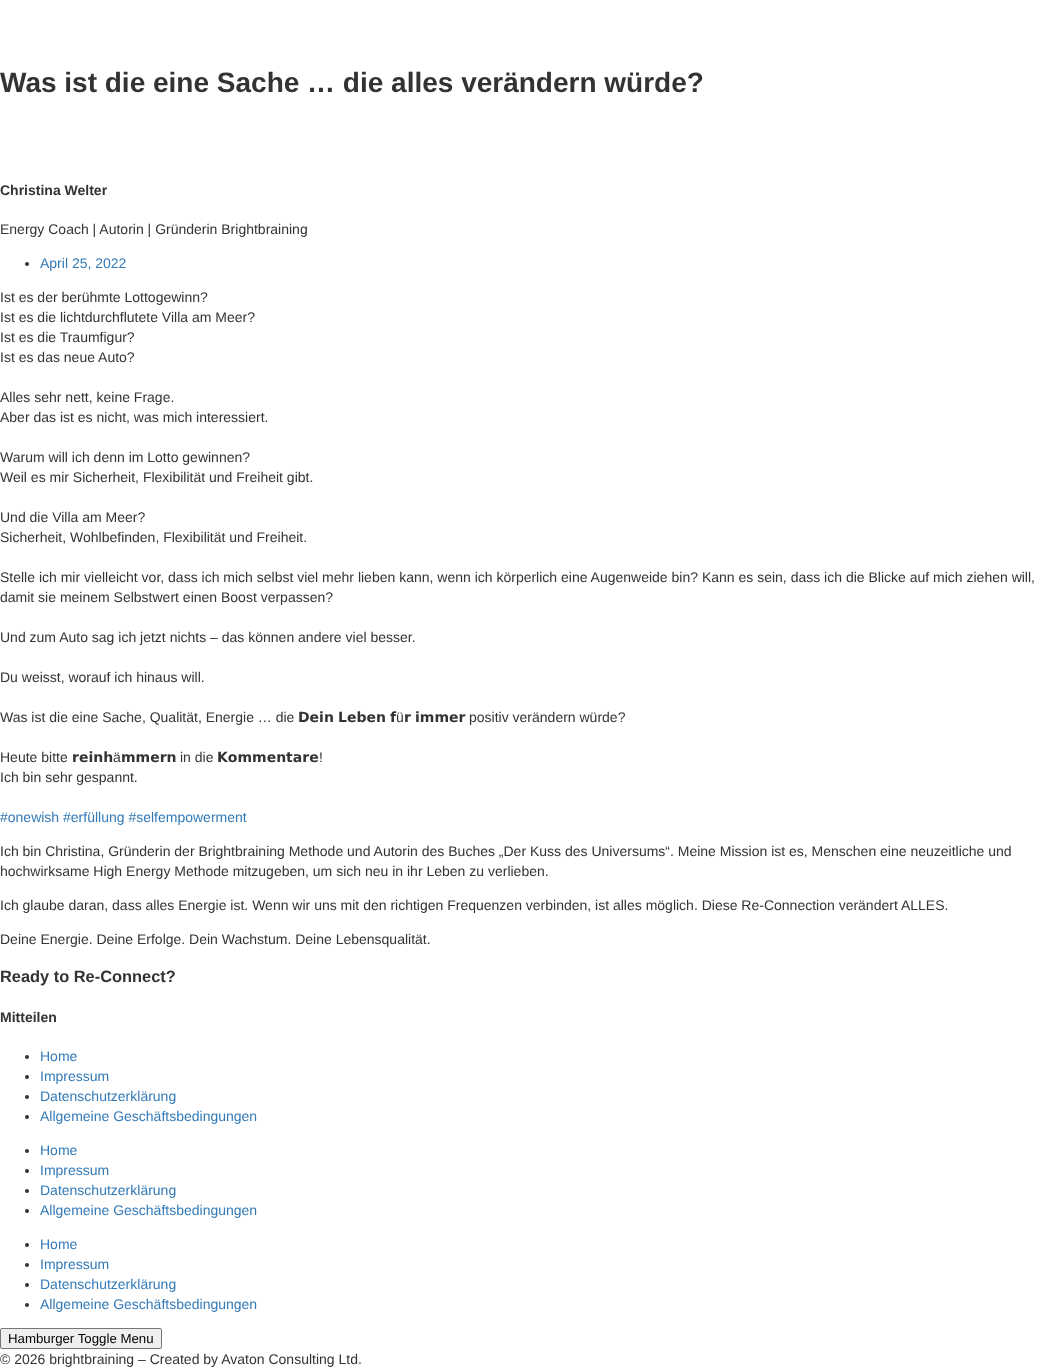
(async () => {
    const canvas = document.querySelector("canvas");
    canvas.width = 1039;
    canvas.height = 1369;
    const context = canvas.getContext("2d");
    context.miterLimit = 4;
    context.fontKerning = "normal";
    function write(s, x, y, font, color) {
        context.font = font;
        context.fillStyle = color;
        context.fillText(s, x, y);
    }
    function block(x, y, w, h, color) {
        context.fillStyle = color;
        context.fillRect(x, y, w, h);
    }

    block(0, 0, 1039, 1369, "rgb(255, 255, 255)");
    write("Was ist die eine Sache … die alles verändern würde?", 0, 92, "bold 28px Liberation Sans", "rgb(51, 51, 51)");
    write("Christina Welter", 0, 195, "bold 14px Liberation Sans", "rgb(51, 51, 51)");
    write("Energy Coach | Autorin | Gründerin Brightbraining", 0, 234, "14px Liberation Sans", "rgb(51, 51, 51)");
    context.beginPath();
    context.arc(27, 264, 2, 0, Math.PI * 2);
    context.fill();
    write("April 25, 2022", 40, 268, "14px Liberation Sans", "rgb(51, 122, 183)");
    write("Ist es der berühmte Lottogewinn?", 0, 302, "14px Liberation Sans", "rgb(51, 51, 51)");
    write("Ist es die lichtdurchflutete Villa am Meer?", 0, 322, "14px Liberation Sans", "rgb(51, 51, 51)");
    write("Ist es die Traumfigur?", 0, 342, "14px Liberation Sans", "rgb(51, 51, 51)");
    write("Ist es das neue Auto?", 0, 362, "14px Liberation Sans", "rgb(51, 51, 51)");
    write("Alles sehr nett, keine Frage.", 0, 402, "14px Liberation Sans", "rgb(51, 51, 51)");
    write("Aber das ist es nicht, was mich interessiert.", 0, 422, "14px Liberation Sans", "rgb(51, 51, 51)");
    write("Warum will ich denn im Lotto gewinnen?", 0, 462, "14px Liberation Sans", "rgb(51, 51, 51)");
    write("Weil es mir Sicherheit, Flexibilität und Freiheit gibt.", 0, 482, "14px Liberation Sans", "rgb(51, 51, 51)");
    write("Und die Villa am Meer?", 0, 522, "14px Liberation Sans", "rgb(51, 51, 51)");
    write("Sicherheit, Wohlbefinden, Flexibilität und Freiheit.", 0, 542, "14px Liberation Sans", "rgb(51, 51, 51)");
    write("Stelle ich mir vielleicht vor, dass ich mich selbst viel mehr lieben kann, wenn ich körperlich eine Augenweide bin? Kann es sein, dass ich die Blicke auf mich ziehen will,", 0, 582, "14px Liberation Sans", "rgb(51, 51, 51)");
    write("damit sie meinem Selbstwert einen Boost verpassen?", 0, 602, "14px Liberation Sans", "rgb(51, 51, 51)");
    write("Und zum Auto sag ich jetzt nichts – das können andere viel besser.", 0, 642, "14px Liberation Sans", "rgb(51, 51, 51)");
    write("Du weisst, worauf ich hinaus will.", 0, 682, "14px Liberation Sans", "rgb(51, 51, 51)");
    write("Was ist die eine Sache, Qualität, Energie … die", 0, 722, "14px Liberation Sans", "rgb(51, 51, 51)");
    write("𝗗𝗲𝗶𝗻", 298, 722, "bold 14px DejaVu Sans", "rgb(51, 51, 51)");
    write("𝗟𝗲𝗯𝗲𝗻", 338, 722, "bold 14px DejaVu Sans", "rgb(51, 51, 51)");
    write("𝗳", 390, 722, "bold 14px DejaVu Sans", "rgb(51, 51, 51)");
    write("ü", 396, 722, "14px Liberation Sans", "rgb(51, 51, 51)");
    write("𝗿", 404, 722, "bold 14px DejaVu Sans", "rgb(51, 51, 51)");
    write("𝗶𝗺𝗺𝗲𝗿", 415, 722, "bold 14px DejaVu Sans", "rgb(51, 51, 51)");
    write("positiv verändern würde?", 469, 722, "14px Liberation Sans", "rgb(51, 51, 51)");
    write("Heute bitte", 0, 762, "14px Liberation Sans", "rgb(51, 51, 51)");
    write("𝗿𝗲𝗶𝗻𝗵", 72, 762, "bold 14px DejaVu Sans", "rgb(51, 51, 51)");
    write("ä", 113, 762, "14px Liberation Sans", "rgb(51, 51, 51)");
    write("𝗺𝗺𝗲𝗿𝗻", 121, 762, "bold 14px DejaVu Sans", "rgb(51, 51, 51)");
    write("in die", 180, 762, "14px Liberation Sans", "rgb(51, 51, 51)");
    write("𝗞𝗼𝗺𝗺𝗲𝗻𝘁𝗮𝗿𝗲", 217, 762, "bold 14px DejaVu Sans", "rgb(51, 51, 51)");
    write("!", 319, 762, "14px Liberation Sans", "rgb(51, 51, 51)");
    write("Ich bin sehr gespannt.", 0, 782, "14px Liberation Sans", "rgb(51, 51, 51)");
    write("#onewish #erfüllung #selfempowerment", 0, 822, "14px Liberation Sans", "rgb(51, 122, 183)");
    write("Ich bin Christina, Gründerin der Brightbraining Methode und Autorin des Buches „Der Kuss des Universums“. Meine Mission ist es, Menschen eine neuzeitliche und", 0, 856, "14px Liberation Sans", "rgb(51, 51, 51)");
    write("hochwirksame High Energy Methode mitzugeben, um sich neu in ihr Leben zu verlieben.", 0, 876, "14px Liberation Sans", "rgb(51, 51, 51)");
    write("Ich glaube daran, dass alles Energie ist. Wenn wir uns mit den richtigen Frequenzen verbinden, ist alles möglich. Diese Re-Connection verändert ALLES.", 0, 910, "14px Liberation Sans", "rgb(51, 51, 51)");
    write("Deine Energie. Deine Erfolge. Dein Wachstum. Deine Lebensqualität.", 0, 944, "14px Liberation Sans", "rgb(51, 51, 51)");
    write("Ready to Re-Connect?", 0, 982, "bold 16.4px Liberation Sans", "rgb(51, 51, 51)");
    write("Mitteilen", 0, 1022, "bold 14px Liberation Sans", "rgb(51, 51, 51)");
    context.beginPath();
    context.arc(27, 1057, 2, 0, Math.PI * 2);
    context.fill();
    write("Home", 40, 1061, "14px Liberation Sans", "rgb(51, 122, 183)");
    context.fillStyle = "rgb(51, 51, 51)";
    context.beginPath();
    context.arc(27, 1077, 2, 0, Math.PI * 2);
    context.fill();
    write("Impressum", 40, 1081, "14px Liberation Sans", "rgb(51, 122, 183)");
    context.fillStyle = "rgb(51, 51, 51)";
    context.beginPath();
    context.arc(27, 1097, 2, 0, Math.PI * 2);
    context.fill();
    write("Datenschutzerklärung", 40, 1101, "14px Liberation Sans", "rgb(51, 122, 183)");
    context.fillStyle = "rgb(51, 51, 51)";
    context.beginPath();
    context.arc(27, 1117, 2, 0, Math.PI * 2);
    context.fill();
    write("Allgemeine Geschäftsbedingungen", 40, 1121, "14px Liberation Sans", "rgb(51, 122, 183)");
    context.fillStyle = "rgb(51, 51, 51)";
    context.beginPath();
    context.arc(27, 1151, 2, 0, Math.PI * 2);
    context.fill();
    write("Home", 40, 1155, "14px Liberation Sans", "rgb(51, 122, 183)");
    context.fillStyle = "rgb(51, 51, 51)";
    context.beginPath();
    context.arc(27, 1171, 2, 0, Math.PI * 2);
    context.fill();
    write("Impressum", 40, 1175, "14px Liberation Sans", "rgb(51, 122, 183)");
    context.fillStyle = "rgb(51, 51, 51)";
    context.beginPath();
    context.arc(27, 1191, 2, 0, Math.PI * 2);
    context.fill();
    write("Datenschutzerklärung", 40, 1195, "14px Liberation Sans", "rgb(51, 122, 183)");
    context.fillStyle = "rgb(51, 51, 51)";
    context.beginPath();
    context.arc(27, 1211, 2, 0, Math.PI * 2);
    context.fill();
    write("Allgemeine Geschäftsbedingungen", 40, 1215, "14px Liberation Sans", "rgb(51, 122, 183)");
    context.fillStyle = "rgb(51, 51, 51)";
    context.beginPath();
    context.arc(27, 1245, 2, 0, Math.PI * 2);
    context.fill();
    write("Home", 40, 1249, "14px Liberation Sans", "rgb(51, 122, 183)");
    context.fillStyle = "rgb(51, 51, 51)";
    context.beginPath();
    context.arc(27, 1265, 2, 0, Math.PI * 2);
    context.fill();
    write("Impressum", 40, 1269, "14px Liberation Sans", "rgb(51, 122, 183)");
    context.fillStyle = "rgb(51, 51, 51)";
    context.beginPath();
    context.arc(27, 1285, 2, 0, Math.PI * 2);
    context.fill();
    write("Datenschutzerklärung", 40, 1289, "14px Liberation Sans", "rgb(51, 122, 183)");
    context.fillStyle = "rgb(51, 51, 51)";
    context.beginPath();
    context.arc(27, 1305, 2, 0, Math.PI * 2);
    context.fill();
    write("Allgemeine Geschäftsbedingungen", 40, 1309, "14px Liberation Sans", "rgb(51, 122, 183)");
    context.fillStyle = "rgb(239, 239, 239)";
    context.beginPath();
    context.roundRect(0.5, 1328.5, 161, 20, 1.5);
    context.fill();
    context.strokeStyle = "rgb(118, 118, 118)";
    context.stroke();
    write("Hamburger Toggle Menu", 8, 1343, "13.25px Liberation Sans", "rgb(0, 0, 0)");
    write("© 2026 brightbraining – Created by Avaton Consulting Ltd.", 0, 1364, "14px Liberation Sans", "rgb(51, 51, 51)");
})();
